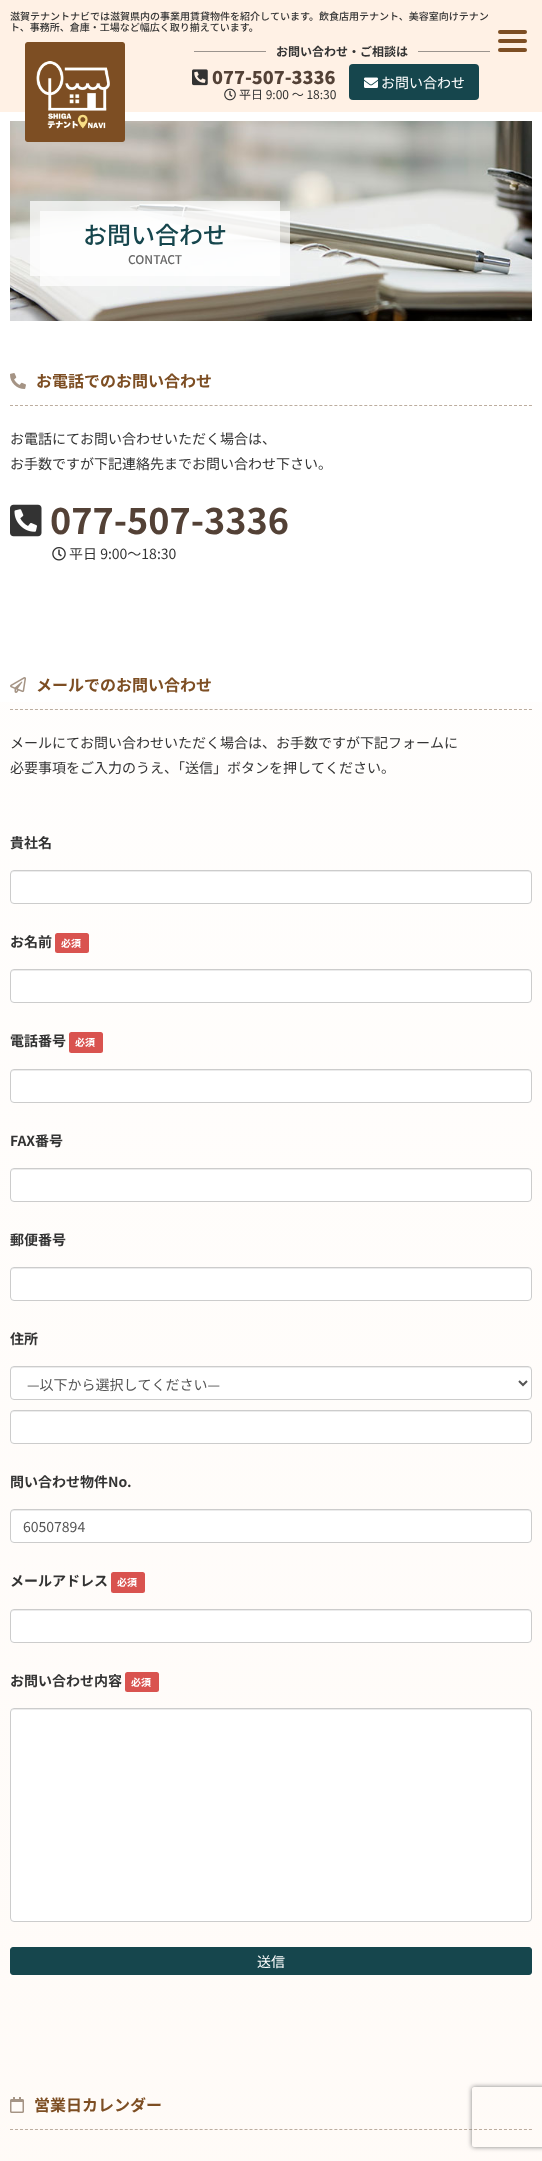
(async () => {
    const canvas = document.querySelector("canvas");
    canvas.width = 542;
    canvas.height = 2161;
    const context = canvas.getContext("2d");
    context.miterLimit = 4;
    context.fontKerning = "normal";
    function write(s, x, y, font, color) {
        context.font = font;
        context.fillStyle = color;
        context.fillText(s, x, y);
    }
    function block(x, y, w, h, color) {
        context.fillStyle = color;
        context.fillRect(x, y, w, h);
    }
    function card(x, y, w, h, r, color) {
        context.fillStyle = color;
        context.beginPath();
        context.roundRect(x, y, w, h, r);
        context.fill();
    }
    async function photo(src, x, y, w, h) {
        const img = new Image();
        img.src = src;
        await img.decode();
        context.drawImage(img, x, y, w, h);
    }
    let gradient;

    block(0, 0, 542, 2161, "rgb(255, 255, 255)");
    block(0, 0, 542, 112, "rgb(255, 241, 229)");
    write("滋賀テナントナビでは滋賀県内の事業用賃貸物件を紹介しています。飲食店用テナント、美容室向けテナン", 10, 20, "500 10px Noto Sans JP", "rgb(51, 51, 51)");
    write("ト、事務所、倉庫・工場など幅広く取り揃えています。", 10, 31, "500 10px Noto Sans JP", "rgb(51, 51, 51)");
    await photo("media/5.png", 10, 121, 522, 200);
    await photo("media/1.png", 25, 42, 100, 100);
    write("──────", 194, 56, "bold 12px Noto Sans JP", "rgb(51, 51, 51)");
    write("お問い合わせ・ご相談は", 276, 56, "bold 12px Noto Sans JP", "rgb(51, 51, 51)");
    write("──────", 418, 56, "bold 12px Noto Sans JP", "rgb(51, 51, 51)");
    await photo("media/2.png", 192, 69, 16, 17);
    write("077-507-3336", 212, 84, "900 18px Noto Sans JP", "rgb(83, 65, 54)");
    await photo("media/3.png", 224, 88, 12, 13);
    write("平日 9:00 ～ 18:30", 239, 99, "12px Noto Sans JP", "rgb(51, 51, 51)");
    card(349, 64, 130, 36, 4, "rgb(22, 70, 77)");
    await photo("media/4.png", 364, 77, 14, 11);
    write("お問い合わせ", 381, 88, "14px Noto Sans JP", "rgb(255, 255, 255)");
    card(498, 30, 29, 4, 2, "rgb(125, 78, 35)");
    card(498, 39, 29, 4, 2, "rgb(125, 78, 35)");
    card(498, 48, 29, 4, 2, "rgb(125, 78, 35)");
    gradient = context.createLinearGradient(271, 0, 271, 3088);
    gradient.addColorStop(0, "rgb(255, 255, 255)");
    gradient.addColorStop(1, "rgb(255, 249, 244)");
    context.fillStyle = gradient;
    context.fillRect(0, 702, 542, 1459);
    block(30, 201, 250, 75, "rgba(255, 255, 255, 0.7)");
    block(40, 211, 250, 75, "rgba(255, 255, 255, 0.7)");
    write("お問い合わせ", 83, 244, "500 24px Noto Sans JP", "rgb(22, 70, 77)");
    write("CONTACT", 128, 264, "500 12px Noto Sans JP", "rgb(102, 102, 102)");
    context.beginPath();
    context.moveTo(10, 405.5);
    context.lineTo(532, 405.5);
    context.strokeStyle = "rgb(188, 173, 159)";
    context.setLineDash([3, 1.99]);
    context.stroke();
    await photo("media/6.png", 10, 373, 16, 16);
    write("お電話でのお問い合わせ", 36, 387, "bold 16px Noto Sans JP", "rgb(125, 78, 35)");
    write("お電話にてお問い合わせいただく場合は、", 10, 444, "14px Noto Sans JP", "rgb(51, 51, 51)");
    write("お手数ですが下記連絡先までお問い合わせ下さい。", 10, 469, "14px Noto Sans JP", "rgb(51, 51, 51)");
    await photo("media/7.png", 10, 504, 32, 33);
    write("077-507-3336", 50, 534, "bold 36px Noto Sans JP", "rgb(83, 65, 54)");
    await photo("media/8.png", 52, 547, 14, 14);
    write("平日 9:00～18:30", 69, 559, "14px Noto Sans JP", "rgb(51, 51, 51)");
    context.beginPath();
    context.moveTo(10, 709.5);
    context.lineTo(532, 709.5);
    context.stroke();
    await photo("media/9.png", 10, 677, 16, 16);
    write("メールでのお問い合わせ", 36, 691, "bold 16px Noto Sans JP", "rgb(125, 78, 35)");
    write("メールにてお問い合わせいただく場合は、お手数ですが下記フォームに", 10, 748, "14px Noto Sans JP", "rgb(51, 51, 51)");
    write("必要事項をご入力のうえ、「送信」ボタンを押してください。", 10, 773, "14px Noto Sans JP", "rgb(51, 51, 51)");
    write("貴社名", 10, 848, "bold 14px Noto Sans JP", "rgb(51, 51, 51)");
    card(10, 870, 522, 34, 4, "rgb(255, 255, 255)");
    context.fillStyle = "rgb(236, 236, 236)";
    context.beginPath();
    context.moveTo(14, 872);
    context.lineTo(528, 872);
    context.bezierCurveTo(530, 872, 531, 873, 531, 875);
    context.lineTo(531, 873);
    context.lineTo(529, 871);
    context.lineTo(14, 871);
    context.bezierCurveTo(12, 871, 11, 873, 11, 875);
    context.bezierCurveTo(11, 873, 12, 872, 14, 872);
    context.closePath();
    context.fill();
    context.beginPath();
    context.roundRect(10.5, 870.5, 521, 33, 3.5);
    context.strokeStyle = "rgb(204, 204, 204)";
    context.setLineDash([]);
    context.stroke();
    write("お名前", 10, 947, "bold 14px Noto Sans JP", "rgb(51, 51, 51)");
    card(55, 933, 34, 20, 2.5, "rgb(217, 83, 79)");
    write("必須", 61, 947, "bold 10px Noto Sans JP", "rgb(255, 255, 255)");
    card(10, 969, 522, 34, 4, "rgb(255, 255, 255)");
    context.fillStyle = "rgb(236, 236, 236)";
    context.beginPath();
    context.moveTo(14, 971);
    context.lineTo(528, 971);
    context.bezierCurveTo(530, 971, 531, 972, 531, 974);
    context.lineTo(531, 972);
    context.lineTo(529, 970);
    context.lineTo(14, 970);
    context.bezierCurveTo(12, 970, 11, 972, 11, 974);
    context.bezierCurveTo(11, 972, 12, 971, 14, 971);
    context.closePath();
    context.fill();
    context.beginPath();
    context.roundRect(10.5, 969.5, 521, 33, 3.5);
    context.stroke();
    write("電話番号", 10, 1046, "bold 14px Noto Sans JP", "rgb(51, 51, 51)");
    card(69, 1032, 34, 21, 2.5, "rgb(217, 83, 79)");
    write("必須", 75, 1046, "bold 10px Noto Sans JP", "rgb(255, 255, 255)");
    card(10, 1069, 522, 34, 4, "rgb(255, 255, 255)");
    context.fillStyle = "rgb(236, 236, 236)";
    context.beginPath();
    context.moveTo(14, 1071);
    context.lineTo(528, 1071);
    context.bezierCurveTo(530, 1071, 531, 1072, 531, 1074);
    context.lineTo(531, 1072);
    context.lineTo(529, 1070);
    context.lineTo(14, 1070);
    context.bezierCurveTo(12, 1070, 11, 1072, 11, 1074);
    context.bezierCurveTo(11, 1072, 12, 1071, 14, 1071);
    context.closePath();
    context.fill();
    context.beginPath();
    context.roundRect(10.5, 1069.5, 521, 33, 3.5);
    context.stroke();
    write("FAX番号", 10, 1146, "bold 14px Noto Sans JP", "rgb(51, 51, 51)");
    card(10, 1168, 522, 34, 4, "rgb(255, 255, 255)");
    context.fillStyle = "rgb(236, 236, 236)";
    context.beginPath();
    context.moveTo(14, 1170);
    context.lineTo(528, 1170);
    context.bezierCurveTo(530, 1170, 531, 1171, 531, 1173);
    context.lineTo(531, 1171);
    context.lineTo(529, 1169);
    context.lineTo(14, 1169);
    context.bezierCurveTo(12, 1169, 11, 1171, 11, 1173);
    context.bezierCurveTo(11, 1171, 12, 1170, 14, 1170);
    context.closePath();
    context.fill();
    context.beginPath();
    context.roundRect(10.5, 1168.5, 521, 33, 3.5);
    context.stroke();
    write("郵便番号", 10, 1245, "bold 14px Noto Sans JP", "rgb(51, 51, 51)");
    card(10, 1267, 522, 34, 4, "rgb(255, 255, 255)");
    context.fillStyle = "rgb(236, 236, 236)";
    context.beginPath();
    context.moveTo(14, 1269);
    context.lineTo(528, 1269);
    context.bezierCurveTo(530, 1269, 531, 1270, 531, 1272);
    context.lineTo(531, 1270);
    context.lineTo(529, 1268);
    context.lineTo(14, 1268);
    context.bezierCurveTo(12, 1268, 11, 1270, 11, 1272);
    context.bezierCurveTo(11, 1270, 12, 1269, 14, 1269);
    context.closePath();
    context.fill();
    context.beginPath();
    context.roundRect(10.5, 1267.5, 521, 33, 3.5);
    context.stroke();
    write("住所", 10, 1344, "bold 14px Noto Sans JP", "rgb(51, 51, 51)");
    card(10, 1366, 522, 34, 4, "rgb(255, 255, 255)");
    context.fillStyle = "rgb(236, 236, 236)";
    context.beginPath();
    context.moveTo(14, 1368);
    context.lineTo(528, 1368);
    context.bezierCurveTo(530, 1368, 531, 1369, 531, 1371);
    context.lineTo(531, 1369);
    context.lineTo(529, 1367);
    context.lineTo(14, 1367);
    context.bezierCurveTo(12, 1367, 11, 1369, 11, 1371);
    context.bezierCurveTo(11, 1369, 12, 1368, 14, 1368);
    context.closePath();
    context.fill();
    context.beginPath();
    context.roundRect(10.5, 1366.5, 521, 33, 3.5);
    context.stroke();
    context.beginPath();
    context.moveTo(519, 1381);
    context.lineTo(523, 1385);
    context.lineTo(527, 1381);
    context.strokeStyle = "rgb(85, 85, 85)";
    context.lineWidth = 2;
    context.stroke();
    write("—以下から選択してください—", 27, 1390, "14px Noto Sans JP", "rgb(85, 85, 85)");
    card(10, 1410, 522, 34, 4, "rgb(255, 255, 255)");
    context.fillStyle = "rgb(236, 236, 236)";
    context.beginPath();
    context.moveTo(14, 1412);
    context.lineTo(528, 1412);
    context.bezierCurveTo(530, 1412, 531, 1413, 531, 1415);
    context.lineTo(531, 1413);
    context.lineTo(529, 1411);
    context.lineTo(14, 1411);
    context.bezierCurveTo(12, 1411, 11, 1413, 11, 1415);
    context.bezierCurveTo(11, 1413, 12, 1412, 14, 1412);
    context.closePath();
    context.fill();
    context.beginPath();
    context.roundRect(10.5, 1410.5, 521, 33, 3.5);
    context.strokeStyle = "rgb(204, 204, 204)";
    context.lineWidth = 1;
    context.stroke();
    write("問い合わせ物件No.", 10, 1487, "bold 14px Noto Sans JP", "rgb(51, 51, 51)");
    card(10, 1509, 522, 34, 4, "rgb(255, 255, 255)");
    context.fillStyle = "rgb(236, 236, 236)";
    context.beginPath();
    context.moveTo(14, 1511);
    context.lineTo(528, 1511);
    context.bezierCurveTo(530, 1511, 531, 1512, 531, 1514);
    context.lineTo(531, 1512);
    context.lineTo(529, 1510);
    context.lineTo(14, 1510);
    context.bezierCurveTo(12, 1510, 11, 1512, 11, 1514);
    context.bezierCurveTo(11, 1512, 12, 1511, 14, 1511);
    context.closePath();
    context.fill();
    context.beginPath();
    context.roundRect(10.5, 1509.5, 521, 33, 3.5);
    context.stroke();
    write("60507894", 23, 1532, "14px Noto Sans JP", "rgb(85, 85, 85)");
    write("メールアドレス", 10, 1586, "bold 14px Noto Sans JP", "rgb(51, 51, 51)");
    card(111, 1572, 34, 21, 2.5, "rgb(217, 83, 79)");
    write("必須", 117, 1586, "bold 10px Noto Sans JP", "rgb(255, 255, 255)");
    card(10, 1609, 522, 34, 4, "rgb(255, 255, 255)");
    context.fillStyle = "rgb(236, 236, 236)";
    context.beginPath();
    context.moveTo(14, 1611);
    context.lineTo(528, 1611);
    context.bezierCurveTo(530, 1611, 531, 1612, 531, 1614);
    context.lineTo(531, 1612);
    context.lineTo(529, 1610);
    context.lineTo(14, 1610);
    context.bezierCurveTo(12, 1610, 11, 1612, 11, 1614);
    context.bezierCurveTo(11, 1612, 12, 1611, 14, 1611);
    context.closePath();
    context.fill();
    context.beginPath();
    context.roundRect(10.5, 1609.5, 521, 33, 3.5);
    context.stroke();
    write("お問い合わせ内容", 10, 1686, "bold 14px Noto Sans JP", "rgb(51, 51, 51)");
    card(125, 1672, 34, 20, 2.5, "rgb(217, 83, 79)");
    write("必須", 131, 1686, "bold 10px Noto Sans JP", "rgb(255, 255, 255)");
    card(10, 1708, 522, 214, 4, "rgb(255, 255, 255)");
    context.fillStyle = "rgb(236, 236, 236)";
    context.beginPath();
    context.moveTo(14, 1710);
    context.lineTo(528, 1710);
    context.bezierCurveTo(530, 1710, 531, 1711, 531, 1713);
    context.lineTo(531, 1711);
    context.lineTo(529, 1709);
    context.lineTo(14, 1709);
    context.bezierCurveTo(12, 1709, 11, 1711, 11, 1713);
    context.bezierCurveTo(11, 1711, 12, 1710, 14, 1710);
    context.closePath();
    context.fill();
    context.beginPath();
    context.roundRect(10.5, 1708.5, 521, 213, 3.5);
    context.stroke();
    context.fillStyle = "rgb(22, 70, 77)";
    context.beginPath();
    context.roundRect(10.5, 1947.5, 521, 27, 2.5);
    context.fill();
    context.strokeStyle = "rgb(22, 70, 77)";
    context.stroke();
    write("送信", 257, 1967, "14px Noto Sans JP", "rgb(255, 255, 255)");
    context.beginPath();
    context.moveTo(10, 2129.5);
    context.lineTo(532, 2129.5);
    context.strokeStyle = "rgb(188, 173, 159)";
    context.setLineDash([3, 1.99]);
    context.stroke();
    await photo("media/10.png", 10, 2097, 14, 16);
    write("営業日カレンダー", 34, 2111, "bold 16px Noto Sans JP", "rgb(125, 78, 35)");
    context.save();
    context.beginPath();
    context.moveTo(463, 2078);
    context.lineTo(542, 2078);
    context.lineTo(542, 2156);
    context.lineTo(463, 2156);
    context.closePath();
    context.moveTo(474, 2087);
    context.lineTo(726, 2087);
    context.bezierCurveTo(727, 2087, 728, 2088, 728, 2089);
    context.lineTo(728, 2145);
    context.bezierCurveTo(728, 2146, 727, 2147, 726, 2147);
    context.lineTo(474, 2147);
    context.bezierCurveTo(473, 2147, 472, 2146, 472, 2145);
    context.lineTo(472, 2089);
    context.bezierCurveTo(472, 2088, 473, 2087, 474, 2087);
    context.closePath();
    context.clip("evenodd");
    context.fillStyle = "rgb(128, 128, 128)";
    context.filter = "blur(2.5px)";
    context.beginPath();
    context.roundRect(472, 2087, 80, 60, 2);
    context.fill();
    context.filter = "none";
    context.restore();
})();
